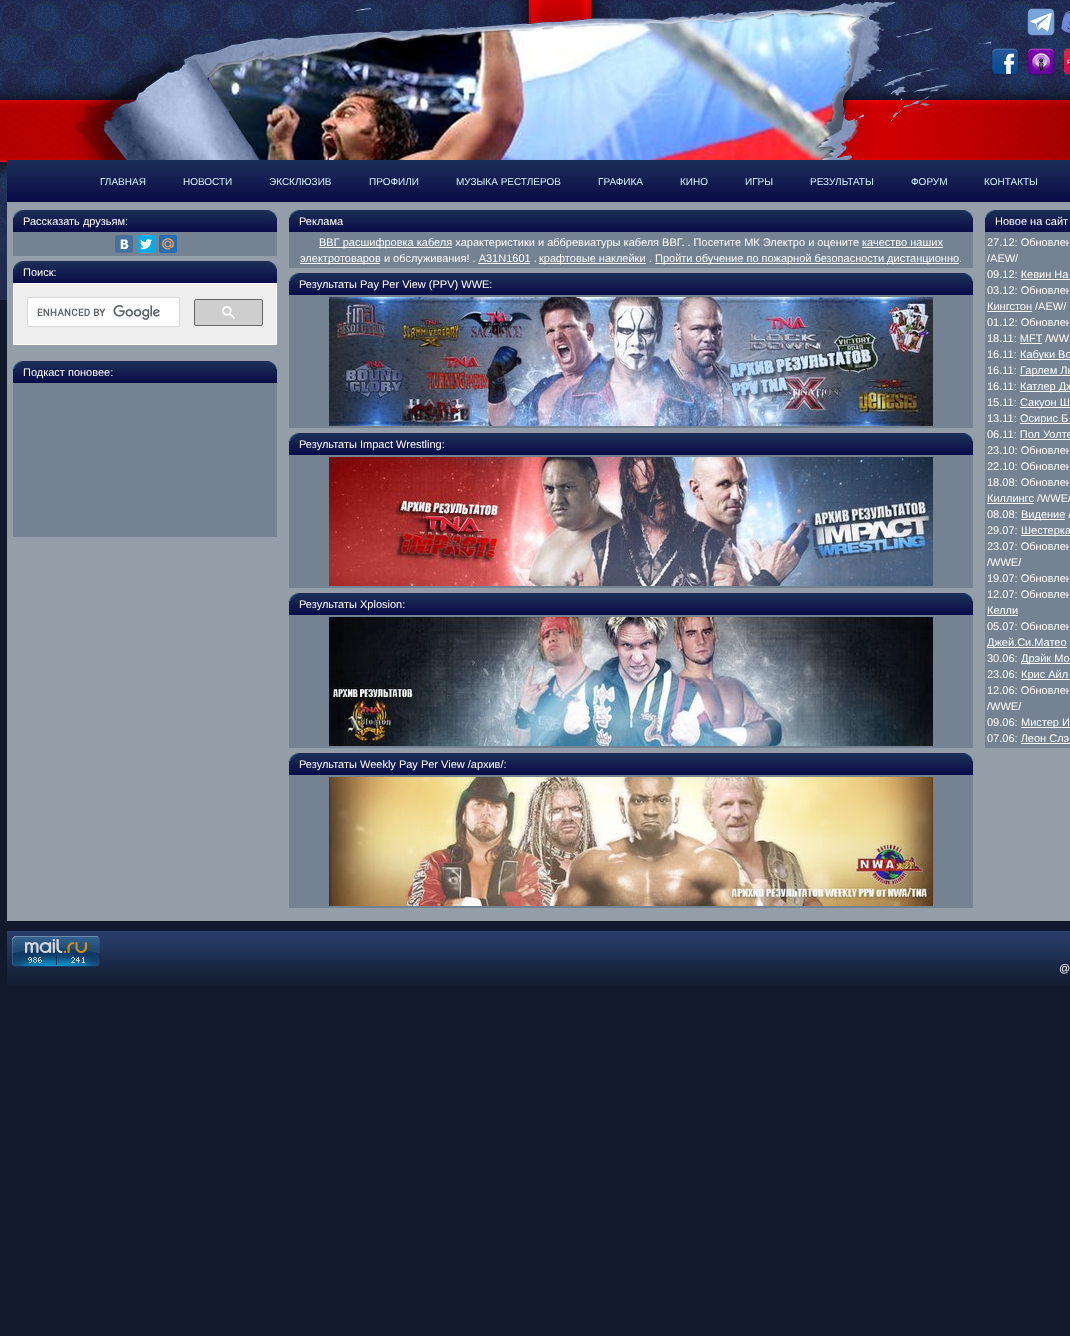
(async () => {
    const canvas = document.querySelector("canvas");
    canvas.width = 1070;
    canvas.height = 1336;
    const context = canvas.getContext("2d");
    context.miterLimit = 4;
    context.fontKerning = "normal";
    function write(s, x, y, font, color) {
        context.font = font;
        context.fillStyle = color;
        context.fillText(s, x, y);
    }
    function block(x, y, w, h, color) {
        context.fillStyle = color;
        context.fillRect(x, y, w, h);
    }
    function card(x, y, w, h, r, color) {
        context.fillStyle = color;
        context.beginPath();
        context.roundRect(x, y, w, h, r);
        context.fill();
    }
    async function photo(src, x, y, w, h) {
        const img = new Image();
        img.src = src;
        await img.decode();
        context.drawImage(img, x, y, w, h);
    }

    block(0, 0, 1070, 1336, "rgb(17, 25, 44)");
    await photo("media/1.png", 0, 0, 1070, 300);
    await photo("media/2.png", 1027, 8, 28, 28);
    await photo("media/3.png", 1061, 10, 9, 23);
    await photo("media/4.png", 991, 48, 28, 28);
    await photo("media/5.png", 1027, 48, 28, 28);
    await photo("media/6.png", 1064, 48, 6, 27);
    await photo("media/7.png", 7, 160, 1063, 42);
    write("ГЛАВНАЯ", 100, 185, "10px Liberation Sans", "rgb(213, 241, 255)");
    write("НОВОСТИ", 183, 185, "10px Liberation Sans", "rgb(213, 241, 255)");
    write("ЭКСКЛЮЗИВ", 269, 185, "10px Liberation Sans", "rgb(213, 241, 255)");
    write("ПРОФИЛИ", 369, 185, "10px Liberation Sans", "rgb(213, 241, 255)");
    write("МУЗЫКА РЕСТЛЕРОВ", 456, 185, "10px Liberation Sans", "rgb(213, 241, 255)");
    write("ГРАФИКА", 598, 185, "10px Liberation Sans", "rgb(213, 241, 255)");
    write("КИНО", 680, 185, "10px Liberation Sans", "rgb(213, 241, 255)");
    write("ИГРЫ", 745, 185, "10px Liberation Sans", "rgb(213, 241, 255)");
    write("РЕЗУЛЬТАТЫ", 810, 185, "10px Liberation Sans", "rgb(213, 241, 255)");
    write("ФОРУМ", 911, 185, "10px Liberation Sans", "rgb(213, 241, 255)");
    write("КОНТАКТЫ", 984, 185, "10px Liberation Sans", "rgb(213, 241, 255)");
    block(7, 202, 1063, 719, "rgb(148, 158, 168)");
    await photo("media/8.png", 13, 210, 264, 22);
    await photo("media/9.png", 13, 210, 9, 8);
    await photo("media/10.png", 268, 210, 9, 8);
    write("Рассказать друзьям:", 23, 225, "11px Liberation Sans", "rgb(255, 255, 255)");
    block(13, 232, 264, 24, "rgb(116, 130, 146)");
    card(115, 235, 18, 18, 2, "rgb(72, 114, 158)");
    await photo("media/11.png", 120, 239, 9, 10);
    card(137, 235, 18, 18, 2, "rgb(0, 172, 237)");
    await photo("media/12.png", 140, 239, 12, 10);
    card(159, 235, 18, 18, 2, "rgb(34, 110, 183)");
    await photo("media/13.png", 162, 238, 12, 12);
    await photo("media/8.png", 13, 261, 264, 22);
    await photo("media/9.png", 13, 261, 9, 8);
    await photo("media/10.png", 268, 261, 9, 8);
    write("Поиск:", 23, 276, "11px Liberation Sans", "rgb(255, 255, 255)");
    context.fillStyle = "rgb(238, 238, 238)";
    context.beginPath();
    context.rect(13.5, 283.5, 263, 61);
    context.fill();
    context.strokeStyle = "rgb(255, 255, 255)";
    context.stroke();
    context.fillStyle = "rgb(255, 255, 255)";
    context.beginPath();
    context.rect(27.5, 297.5, 152, 29);
    context.fill();
    context.strokeStyle = "rgb(217, 217, 217)";
    context.stroke();
    await photo("media/14.png", 37, 305, 123, 15);
    context.fillStyle = "rgb(206, 206, 206)";
    context.beginPath();
    context.roundRect(194.5, 299.5, 68, 26, 1.5);
    context.fill();
    context.strokeStyle = "rgb(102, 102, 102)";
    context.stroke();
    await photo("media/15.png", 222, 306, 13, 13);
    await photo("media/8.png", 13, 361, 264, 22);
    await photo("media/9.png", 13, 361, 9, 8);
    await photo("media/10.png", 268, 361, 9, 8);
    write("Подкаст поновее:", 23, 376, "11px Liberation Sans", "rgb(255, 255, 255)");
    block(13, 383, 264, 154, "rgb(116, 130, 146)");
    await photo("media/16.png", 289, 210, 684, 22);
    await photo("media/9.png", 289, 210, 9, 8);
    await photo("media/10.png", 964, 210, 9, 8);
    write("Реклама", 299, 225, "11px Liberation Sans", "rgb(255, 255, 255)");
    block(289, 232, 684, 36, "rgb(116, 130, 146)");
    block(319, 247, 133, 1, "rgb(255, 255, 255)");
    write("ВВГ расшифровка кабеля характеристики и аббревиатуры кабеля ВВГ. . Посетите МК Электро и оцените качество наших", 319, 246, "11px Liberation Sans", "rgb(255, 255, 255)");
    block(300, 263, 80, 1, "rgb(255, 255, 255)");
    write("электротоваров и обслуживания! . A31N1601 .", 300, 262, "11px Liberation Sans", "rgb(255, 255, 255)");
    block(862, 247, 81, 1, "rgb(255, 255, 255)");
    block(539, 263, 107, 1, "rgb(255, 255, 255)");
    write("крафтовые наклейки .", 539, 262, "11px Liberation Sans", "rgb(255, 255, 255)");
    block(655, 263, 304, 1, "rgb(255, 255, 255)");
    write("Пройти обучение по пожарной безопасности дистанционно.", 655, 262, "11px Liberation Sans", "rgb(255, 255, 255)");
    block(478, 263, 52, 1, "rgb(255, 255, 255)");
    await photo("media/16.png", 289, 273, 684, 22);
    await photo("media/9.png", 289, 273, 9, 8);
    await photo("media/10.png", 964, 273, 9, 8);
    write("Результаты Pay Per View (PPV) WWE:", 299, 288, "11px Liberation Sans", "rgb(255, 255, 255)");
    block(289, 295, 684, 133, "rgb(116, 130, 146)");
    await photo("media/17.png", 329, 297, 604, 129);
    await photo("media/16.png", 289, 433, 684, 22);
    await photo("media/9.png", 289, 433, 9, 8);
    await photo("media/10.png", 964, 433, 9, 8);
    write("Результаты Impact Wrestling:", 299, 448, "11px Liberation Sans", "rgb(255, 255, 255)");
    block(289, 455, 684, 133, "rgb(116, 130, 146)");
    await photo("media/18.png", 329, 457, 604, 129);
    await photo("media/16.png", 289, 593, 684, 22);
    await photo("media/9.png", 289, 593, 9, 8);
    await photo("media/10.png", 964, 593, 9, 8);
    write("Результаты Xplosion:", 299, 608, "11px Liberation Sans", "rgb(255, 255, 255)");
    block(289, 615, 684, 133, "rgb(116, 130, 146)");
    await photo("media/19.png", 329, 617, 604, 129);
    await photo("media/16.png", 289, 753, 684, 22);
    await photo("media/9.png", 289, 753, 9, 8);
    await photo("media/10.png", 964, 753, 9, 8);
    write("Результаты Weekly Pay Per View /архив/:", 299, 768, "11px Liberation Sans", "rgb(255, 255, 255)");
    block(289, 775, 684, 133, "rgb(116, 130, 146)");
    await photo("media/20.png", 329, 777, 604, 129);
    await photo("media/21.png", 985, 210, 85, 22);
    await photo("media/9.png", 985, 210, 9, 8);
    write("Новое на сайт", 995, 225, "11px Liberation Sans", "rgb(255, 255, 255)");
    block(985, 232, 85, 516, "rgb(116, 130, 146)");
    write("27.12: Обновлен", 987, 246, "11px Liberation Sans", "rgb(255, 255, 255)");
    write("/AEW/", 987, 262, "11px Liberation Sans", "rgb(255, 255, 255)");
    write("09.12: Кевин На", 987, 278, "11px Liberation Sans", "rgb(255, 255, 255)");
    block(1021, 279, 49, 1, "rgb(255, 255, 255)");
    write("03.12: Обновлен", 987, 294, "11px Liberation Sans", "rgb(255, 255, 255)");
    write("Кингстон /AEW/", 987, 310, "11px Liberation Sans", "rgb(255, 255, 255)");
    block(987, 311, 45, 1, "rgb(255, 255, 255)");
    write("01.12: Обновлен", 987, 326, "11px Liberation Sans", "rgb(255, 255, 255)");
    write("18.11: MFT /WW", 987, 342, "11px Liberation Sans", "rgb(255, 255, 255)");
    block(1020, 343, 22, 1, "rgb(255, 255, 255)");
    write("16.11:", 987, 358, "11px Liberation Sans", "rgb(255, 255, 255)");
    block(1020, 359, 50, 1, "rgb(255, 255, 255)");
    write("Кабуки Во", 1020, 358, "11px Liberation Sans", "rgb(255, 255, 255)");
    write("16.11:", 987, 374, "11px Liberation Sans", "rgb(255, 255, 255)");
    block(1020, 375, 50, 1, "rgb(255, 255, 255)");
    write("Гарлем Ль", 1020, 374, "11px Liberation Sans", "rgb(255, 255, 255)");
    write("16.11:", 987, 390, "11px Liberation Sans", "rgb(255, 255, 255)");
    block(1020, 391, 50, 1, "rgb(255, 255, 255)");
    write("Катлер Дж", 1020, 390, "11px Liberation Sans", "rgb(255, 255, 255)");
    write("15.11:", 987, 406, "11px Liberation Sans", "rgb(255, 255, 255)");
    block(1020, 407, 50, 1, "rgb(255, 255, 255)");
    write("Сакуон Ш", 1020, 406, "11px Liberation Sans", "rgb(255, 255, 255)");
    write("13.11:", 987, 422, "11px Liberation Sans", "rgb(255, 255, 255)");
    block(1020, 423, 50, 1, "rgb(255, 255, 255)");
    write("Осирис Б", 1020, 422, "11px Liberation Sans", "rgb(255, 255, 255)");
    write("06.11: Пол Уолте", 987, 438, "11px Liberation Sans", "rgb(255, 255, 255)");
    block(1020, 439, 50, 1, "rgb(255, 255, 255)");
    write("23.10: Обновлен", 987, 454, "11px Liberation Sans", "rgb(255, 255, 255)");
    write("22.10: Обновлен", 987, 470, "11px Liberation Sans", "rgb(255, 255, 255)");
    write("18.08: Обновлен", 987, 486, "11px Liberation Sans", "rgb(255, 255, 255)");
    write("Киллингс /WWE/", 987, 502, "11px Liberation Sans", "rgb(255, 255, 255)");
    block(987, 503, 47, 1, "rgb(255, 255, 255)");
    write("08.08:", 987, 518, "11px Liberation Sans", "rgb(255, 255, 255)");
    block(1021, 519, 44, 1, "rgb(255, 255, 255)");
    write("Видение /", 1021, 518, "11px Liberation Sans", "rgb(255, 255, 255)");
    write("29.07:", 987, 534, "11px Liberation Sans", "rgb(255, 255, 255)");
    block(1021, 535, 49, 1, "rgb(255, 255, 255)");
    write("Шестерка", 1021, 534, "11px Liberation Sans", "rgb(255, 255, 255)");
    write("23.07: Обновлен", 987, 550, "11px Liberation Sans", "rgb(255, 255, 255)");
    write("/WWE/", 987, 566, "11px Liberation Sans", "rgb(255, 255, 255)");
    write("19.07: Обновлен", 987, 582, "11px Liberation Sans", "rgb(255, 255, 255)");
    write("12.07: Обновлен", 987, 598, "11px Liberation Sans", "rgb(255, 255, 255)");
    write("Келли", 987, 614, "11px Liberation Sans", "rgb(255, 255, 255)");
    block(987, 615, 31, 1, "rgb(255, 255, 255)");
    write("05.07: Обновлен", 987, 630, "11px Liberation Sans", "rgb(255, 255, 255)");
    block(987, 647, 80, 1, "rgb(255, 255, 255)");
    write("Джей.Си.Матео", 987, 646, "11px Liberation Sans", "rgb(255, 255, 255)");
    write("30.06:", 987, 662, "11px Liberation Sans", "rgb(255, 255, 255)");
    block(1021, 663, 49, 1, "rgb(255, 255, 255)");
    write("Дрэйк Мо", 1021, 662, "11px Liberation Sans", "rgb(255, 255, 255)");
    write("23.06:", 987, 678, "11px Liberation Sans", "rgb(255, 255, 255)");
    block(1021, 679, 49, 1, "rgb(255, 255, 255)");
    write("Крис Айл", 1021, 678, "11px Liberation Sans", "rgb(255, 255, 255)");
    write("12.06: Обновлен", 987, 694, "11px Liberation Sans", "rgb(255, 255, 255)");
    write("/WWE/", 987, 710, "11px Liberation Sans", "rgb(255, 255, 255)");
    write("09.06:", 987, 726, "11px Liberation Sans", "rgb(255, 255, 255)");
    block(1021, 727, 49, 1, "rgb(255, 255, 255)");
    write("Мистер И", 1021, 726, "11px Liberation Sans", "rgb(255, 255, 255)");
    write("07.06: Леон Слэ", 987, 742, "11px Liberation Sans", "rgb(255, 255, 255)");
    block(1021, 743, 49, 1, "rgb(255, 255, 255)");
    await photo("media/22.png", 7, 931, 1063, 55);
    await photo("media/23.png", 12, 936, 88, 31);
    write("@", 1059, 972, "11px Liberation Sans", "rgb(255, 255, 255)");
})();
